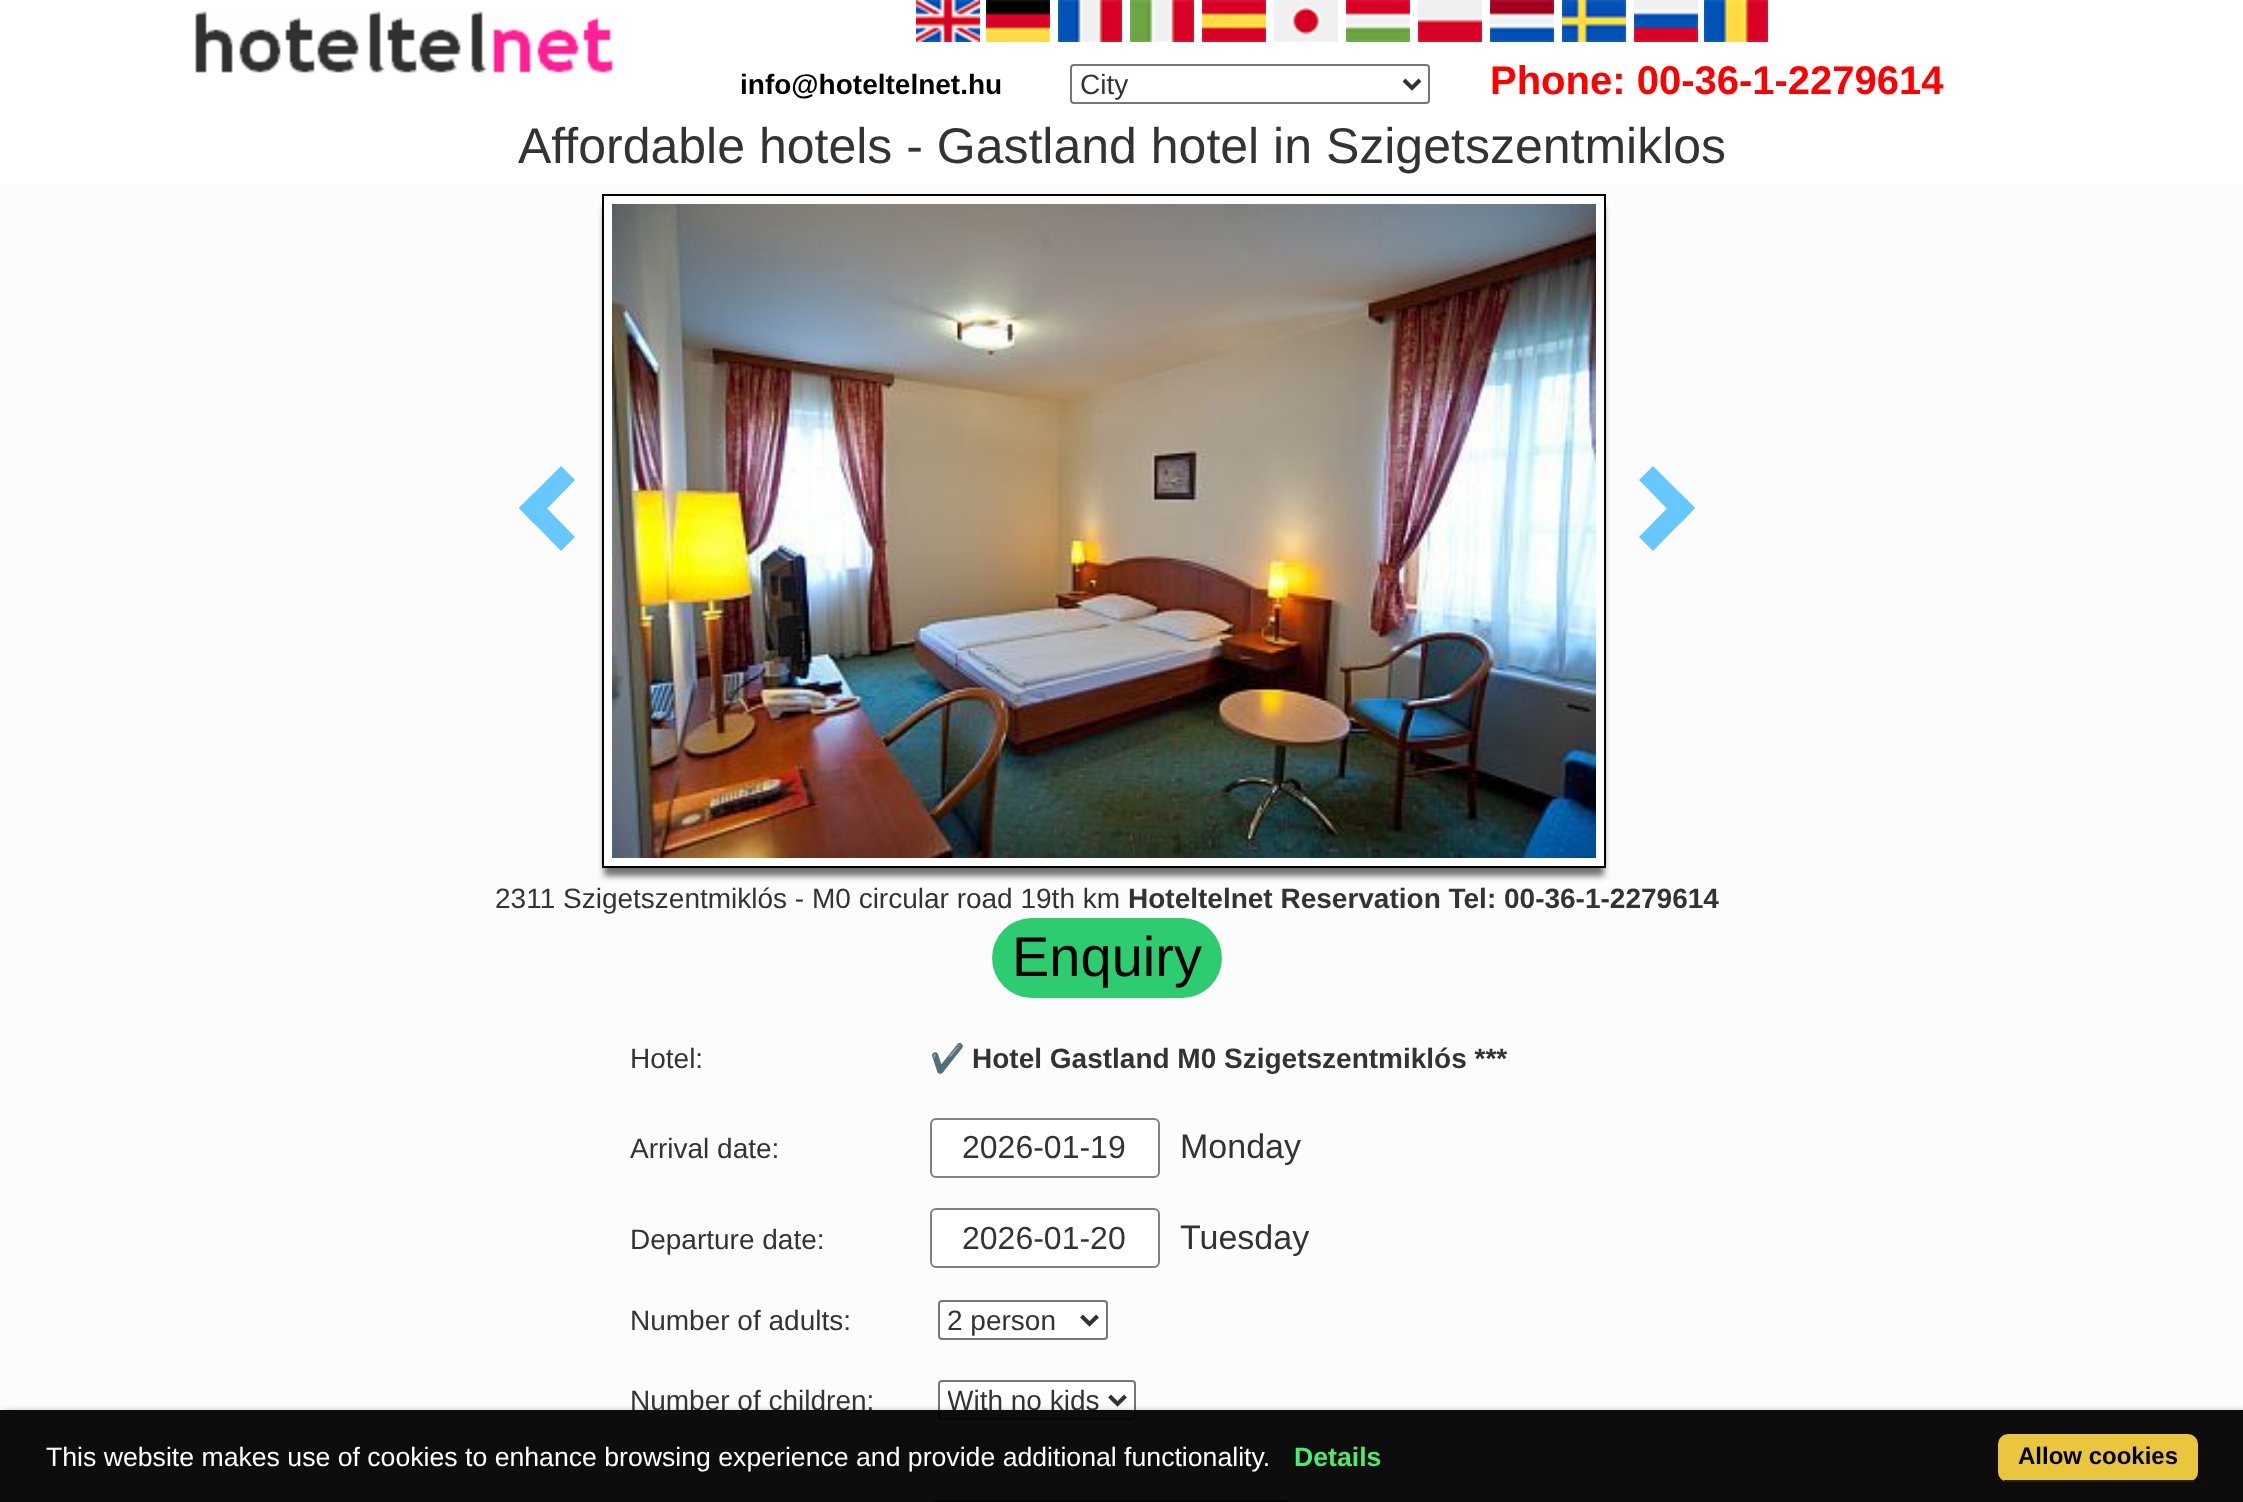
(async () => {
    const canvas = document.querySelector("canvas");
    canvas.width = 2243;
    canvas.height = 1502;
    const context = canvas.getContext("2d");
    context.miterLimit = 4;
    context.fontKerning = "normal";
    function write(s, x, y, font, color) {
        context.font = font;
        context.fillStyle = color;
        context.fillText(s, x, y);
    }
    function block(x, y, w, h, color) {
        context.fillStyle = color;
        context.fillRect(x, y, w, h);
    }
    function card(x, y, w, h, r, color) {
        context.fillStyle = color;
        context.beginPath();
        context.roundRect(x, y, w, h, r);
        context.fill();
    }
    async function photo(src, x, y, w, h) {
        const img = new Image();
        img.src = src;
        await img.decode();
        context.drawImage(img, x, y, w, h);
    }

    block(0, 0, 2243, 1502, "rgb(255, 255, 255)");
    await photo("media/1.png", 195, 11, 418, 62);
    await photo("media/2.png", 916, 0, 64, 42);
    await photo("media/3.png", 986, 0, 64, 42);
    await photo("media/4.png", 1058, 0, 64, 42);
    await photo("media/5.png", 1130, 0, 64, 42);
    await photo("media/6.png", 1202, 0, 64, 42);
    await photo("media/7.png", 1274, 0, 64, 42);
    await photo("media/8.png", 1346, 0, 64, 42);
    await photo("media/9.png", 1418, 0, 64, 42);
    await photo("media/10.png", 1490, 0, 64, 42);
    await photo("media/11.png", 1562, 0, 64, 42);
    await photo("media/12.png", 1634, 0, 64, 42);
    await photo("media/13.png", 1704, 0, 64, 42);
    write("info@hoteltelnet.hu", 740, 94, "bold 28px Liberation Sans", "rgb(0, 0, 0)");
    context.beginPath();
    context.roundRect(1071, 65, 358, 38, 3);
    context.strokeStyle = "rgb(118, 118, 118)";
    context.lineWidth = 2;
    context.stroke();
    context.beginPath();
    context.moveTo(1404, 80);
    context.lineTo(1412, 88);
    context.lineTo(1420, 80);
    context.strokeStyle = "rgb(51, 51, 51)";
    context.lineWidth = 4;
    context.stroke();
    write("City", 1080, 94, "28px Liberation Sans", "rgb(51, 51, 51)");
    write("Phone: 00-36-1-2279614", 1490, 94, "bold 40px Liberation Sans", "rgb(255, 0, 0)");
    write("Affordable hotels - Gastland hotel in Szigetszentmiklos", 518, 163, "50px Liberation Sans", "rgb(51, 51, 51)");
    block(0, 184, 2243, 1318, "rgb(252, 252, 252)");
    context.fillStyle = "rgba(0, 0, 0, 0.55)";
    context.filter = "blur(3px)";
    context.beginPath();
    context.rect(604, 206, 1000, 670);
    context.fill();
    context.filter = "none";
    context.strokeStyle = "rgb(255, 255, 255)";
    context.lineWidth = 8;
    context.strokeRect(608, 200, 992, 662);
    await photo("media/14.png", 612, 204, 984, 654);
    context.strokeStyle = "rgb(0, 0, 0)";
    context.lineWidth = 2;
    context.strokeRect(603, 195, 1002, 672);
    context.fillStyle = "rgb(103, 200, 255)";
    context.beginPath();
    context.moveTo(575, 537);
    context.lineTo(561, 551);
    context.lineTo(519, 508);
    context.lineTo(533, 494);
    context.closePath();
    context.fill();
    context.beginPath();
    context.moveTo(575, 480);
    context.lineTo(533, 523);
    context.lineTo(519, 508);
    context.lineTo(561, 466);
    context.closePath();
    context.fill();
    context.beginPath();
    context.moveTo(1639, 480);
    context.lineTo(1653, 466);
    context.lineTo(1695, 508);
    context.lineTo(1681, 523);
    context.closePath();
    context.fill();
    context.beginPath();
    context.moveTo(1639, 537);
    context.lineTo(1681, 494);
    context.lineTo(1695, 508);
    context.lineTo(1653, 551);
    context.closePath();
    context.fill();
    write("2311 Szigetszentmiklós - M0 circular road 19th km", 495, 908, "28px Liberation Sans", "rgb(51, 51, 51)");
    write("Hoteltelnet Reservation Tel: 00-36-1-2279614", 1128, 908, "bold 28px Liberation Sans", "rgb(51, 51, 51)");
    card(992, 918, 230, 80, 40, "rgb(46, 204, 113)");
    write("Enquiry", 1012, 976, "56px Liberation Sans", "rgb(0, 0, 0)");
    write("Hotel:", 630, 1068, "28px Liberation Sans", "rgb(51, 51, 51)");
    write("✔️", 930, 1068, "bold 28px Noto Color Emoji", "rgb(51, 51, 51)");
    write("Hotel Gastland M0 Szigetszentmiklós ***", 972, 1068, "bold 28px Liberation Sans", "rgb(51, 51, 51)");
    write("Arrival date:", 630, 1158, "28px Liberation Sans", "rgb(51, 51, 51)");
    context.fillStyle = "rgb(255, 255, 255)";
    context.beginPath();
    context.roundRect(931, 1119, 228, 58, 5);
    context.fill();
    context.strokeStyle = "rgb(128, 128, 128)";
    context.stroke();
    write("2026-01-19", 962, 1158, "32px Liberation Sans", "rgb(51, 51, 51)");
    write("Monday", 1180, 1158, "34px Liberation Sans", "rgb(51, 51, 51)");
    write("Departure date:", 630, 1249, "28px Liberation Sans", "rgb(51, 51, 51)");
    context.fillStyle = "rgb(255, 255, 255)";
    context.beginPath();
    context.roundRect(931, 1209, 228, 58, 5);
    context.fill();
    context.stroke();
    write("2026-01-20", 962, 1249, "32px Liberation Sans", "rgb(51, 51, 51)");
    write("Tuesday", 1180, 1249, "34px Liberation Sans", "rgb(51, 51, 51)");
    write("Number of adults:", 630, 1330, "28px Liberation Sans", "rgb(51, 51, 51)");
    context.fillStyle = "rgb(255, 255, 255)";
    context.beginPath();
    context.roundRect(939, 1301, 168, 38, 3);
    context.fill();
    context.strokeStyle = "rgb(118, 118, 118)";
    context.stroke();
    context.beginPath();
    context.moveTo(1081.5, 1316);
    context.lineTo(1089.5, 1324);
    context.lineTo(1097.5, 1316);
    context.strokeStyle = "rgb(51, 51, 51)";
    context.lineWidth = 4;
    context.stroke();
    write("2 person", 947, 1330, "28px Liberation Sans", "rgb(51, 51, 51)");
    write("Number of children:", 630, 1410, "28px Liberation Sans", "rgb(51, 51, 51)");
    context.fillStyle = "rgb(255, 255, 255)";
    context.beginPath();
    context.roundRect(939, 1381, 196, 38, 3);
    context.fill();
    context.strokeStyle = "rgb(118, 118, 118)";
    context.lineWidth = 2;
    context.stroke();
    context.beginPath();
    context.moveTo(1109.5, 1396);
    context.lineTo(1117.5, 1404);
    context.lineTo(1125.5, 1396);
    context.strokeStyle = "rgb(51, 51, 51)";
    context.lineWidth = 4;
    context.stroke();
    context.save();
    context.beginPath();
    context.rect(948, 1382, 154, 36);
    context.clip();
    write("With no kids", 947, 1410, "28px Liberation Sans", "rgb(51, 51, 51)");
    context.restore();
    context.beginPath();
    context.roundRect(931, 1501, 356, 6, 3);
    context.strokeStyle = "rgb(118, 118, 118)";
    context.lineWidth = 2;
    context.stroke();
    context.save();
    context.beginPath();
    context.rect(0, 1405, 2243, 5);
    context.clip();
    context.fillStyle = "rgba(0, 0, 0, 0.6)";
    context.filter = "blur(5px)";
    context.beginPath();
    context.rect(4, 1414, 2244, 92);
    context.fill();
    context.filter = "none";
    context.restore();
    block(0, 1410, 2243, 92, "rgba(0, 0, 0, 0.95)");
    write("This website makes use of cookies to enhance browsing experience and provide additional functionality.", 46, 1466, "26.65px Liberation Sans", "rgb(255, 255, 255)");
    write("Details", 1294, 1466, "bold 26.65px Liberation Sans", "rgb(75, 236, 105)");
    card(1998, 1434, 200, 48, 10, "rgb(234, 197, 62)");
    block(2004, 1480, 190, 2, "rgb(34, 34, 34)");
    write("Allow cookies", 2018, 1464, "bold 24px Liberation Sans", "rgb(0, 0, 0)");
})();
